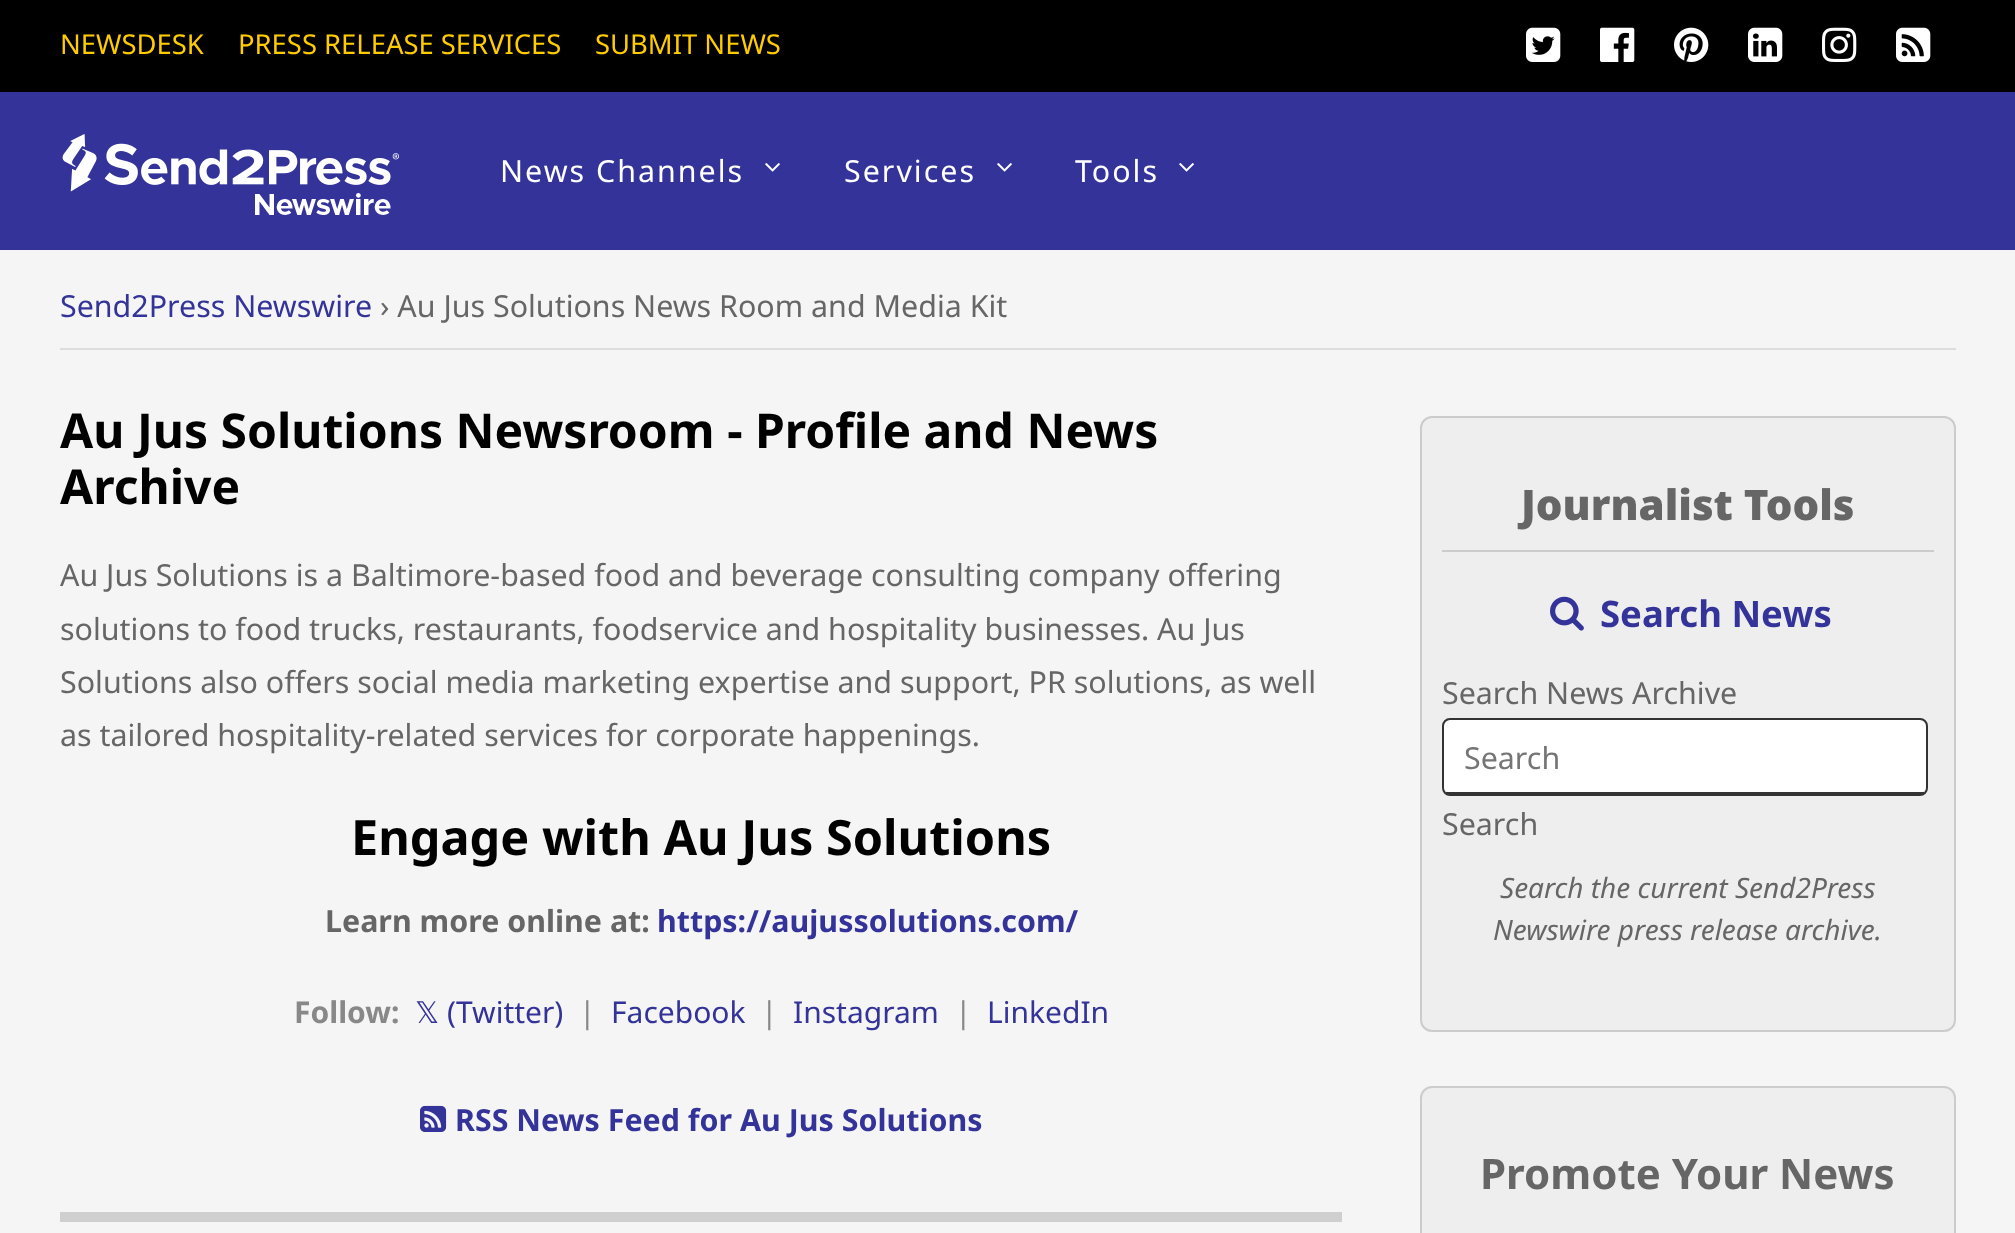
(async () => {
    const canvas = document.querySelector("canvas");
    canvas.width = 2015;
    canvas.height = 1233;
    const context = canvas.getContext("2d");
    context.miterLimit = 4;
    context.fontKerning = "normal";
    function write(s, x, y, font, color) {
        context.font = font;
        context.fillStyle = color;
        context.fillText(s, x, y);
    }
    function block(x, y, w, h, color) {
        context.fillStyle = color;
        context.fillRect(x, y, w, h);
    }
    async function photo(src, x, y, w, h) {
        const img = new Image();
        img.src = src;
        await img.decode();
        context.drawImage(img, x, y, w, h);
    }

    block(0, 0, 2015, 1233, "rgb(245, 245, 245)");
    block(0, 92, 2015, 158, "rgb(51, 51, 153)");
    block(0, 0, 2015, 92, "rgb(0, 0, 0)");
    write("NEWSDESK", 60, 54, "27.4px Noto Sans", "rgb(255, 204, 0)");
    write("PRESS RELEASE SERVICES", 238, 54, "27.4px Noto Sans", "rgb(255, 204, 0)");
    write("SUBMIT NEWS", 595, 54, "27.4px Noto Sans", "rgb(255, 204, 0)");
    await photo("media/1.png", 1526, 27, 35, 35);
    await photo("media/2.png", 1600, 27, 35, 35);
    await photo("media/3.png", 1674, 27, 35, 35);
    await photo("media/4.png", 1748, 27, 35, 35);
    await photo("media/5.png", 1822, 27, 35, 35);
    await photo("media/6.png", 1896, 27, 35, 35);
    await photo("media/7.png", 62, 134, 337, 81);
    context.letterSpacing = "2px";
    write("News Channels", 500, 182, "30.4px Noto Sans", "rgb(255, 255, 255)");
    await photo("media/8.png", 765, 163, 15, 9);
    write("Services", 844, 182, "30.4px Noto Sans", "rgb(255, 255, 255)");
    await photo("media/8.png", 997, 163, 15, 9);
    write("Tools", 1075, 182, "30.4px Noto Sans", "rgb(255, 255, 255)");
    await photo("media/8.png", 1179, 163, 15, 9);
    block(60, 348, 1896, 2, "rgb(221, 221, 221)");
    context.letterSpacing = "0px";
    write("Send2Press Newswire", 60, 317, "30.4px Noto Sans", "rgb(51, 51, 153)");
    write("› Au Jus Solutions News Room and Media Kit", 380, 317, "30.4px Noto Sans", "rgb(102, 102, 102)");
    write("Au Jus Solutions Newsroom - Profile and News", 60, 448, "bold 48px Noto Sans", "rgb(0, 0, 0)");
    write("Archive", 60, 504, "bold 48px Noto Sans", "rgb(0, 0, 0)");
    write("Au Jus Solutions is a Baltimore-based food and beverage consulting company offering", 60, 586, "30.4px Noto Sans", "rgb(102, 102, 102)");
    write("solutions to food trucks, restaurants, foodservice and hospitality businesses. Au Jus", 60, 640, "30.4px Noto Sans", "rgb(102, 102, 102)");
    write("Solutions also offers social media marketing expertise and support, PR solutions, as well", 60, 693, "30.4px Noto Sans", "rgb(102, 102, 102)");
    write("as tailored hospitality-related services for corporate happenings.", 60, 746, "30.4px Noto Sans", "rgb(102, 102, 102)");
    write("Engage with Au Jus Solutions", 351, 855, "bold 48.6px Noto Sans", "rgb(0, 0, 0)");
    write("Learn more online at:", 325, 932, "bold 30.4px Noto Sans", "rgb(102, 102, 102)");
    write("https://aujussolutions.com/", 657, 932, "bold 30.4px Noto Sans", "rgb(51, 51, 153)");
    write("Follow:", 294, 1023, "bold 30px Noto Sans", "rgb(136, 136, 136)");
    write("𝕏", 415, 1023, "30px DejaVu Sans", "rgb(51, 51, 153)");
    write("(Twitter)", 447, 1023, "30px Noto Sans", "rgb(51, 51, 153)");
    write("|", 579, 1023, "30px Noto Sans", "rgb(136, 136, 136)");
    write("Facebook", 611, 1023, "30px Noto Sans", "rgb(51, 51, 153)");
    write("|", 761, 1023, "30px Noto Sans", "rgb(136, 136, 136)");
    write("Instagram", 793, 1023, "30px Noto Sans", "rgb(51, 51, 153)");
    write("|", 955, 1023, "30px Noto Sans", "rgb(136, 136, 136)");
    write("LinkedIn", 987, 1023, "30px Noto Sans", "rgb(51, 51, 153)");
    await photo("media/9.png", 420, 1105, 27, 27);
    write("RSS News Feed for Au Jus Solutions", 455, 1131, "bold 30.4px Noto Sans", "rgb(51, 51, 153)");
    block(60, 1212, 1282, 10, "rgb(207, 207, 207)");
    context.fillStyle = "rgb(238, 238, 238)";
    context.beginPath();
    context.roundRect(1421, 417, 534, 614, 11);
    context.fill();
    context.strokeStyle = "rgb(204, 204, 204)";
    context.lineWidth = 2;
    context.stroke();
    write("Journalist Tools", 1521, 520, "900 42px Noto Sans", "rgb(102, 102, 102)");
    block(1442, 550, 492, 2, "rgb(204, 204, 204)");
    await photo("media/10.png", 1550, 596, 34, 35);
    write("Search News", 1600, 627, "bold 36.5px Noto Sans", "rgb(51, 51, 153)");
    write("Search News Archive", 1442, 704, "30.4px Noto Sans", "rgb(102, 102, 102)");
    context.fillStyle = "rgb(255, 255, 255)";
    context.beginPath();
    context.moveTo(1450, 720);
    context.lineTo(1920, 720);
    context.bezierCurveTo(1923, 720, 1926, 723, 1926, 726);
    context.lineTo(1926, 788);
    context.bezierCurveTo(1926, 790, 1923, 792, 1920, 792);
    context.lineTo(1450, 792);
    context.bezierCurveTo(1447, 792, 1444, 790, 1444, 788);
    context.lineTo(1444, 726);
    context.bezierCurveTo(1444, 723, 1447, 720, 1450, 720);
    context.closePath();
    context.fill();
    context.beginPath();
    context.roundRect(1443, 719, 484, 76, 7);
    context.strokeStyle = "rgb(51, 51, 51)";
    context.stroke();
    block(1446, 792, 478, 2, "rgb(51, 51, 51)");
    write("Search", 1464, 769, "30.4px Noto Sans", "rgb(117, 117, 117)");
    write("Search", 1442, 835, "30.4px Noto Sans", "rgb(102, 102, 102)");
    write("Search the current Send2Press", 1500, 898, "italic 28px Noto Sans", "rgb(102, 102, 102)");
    write("Newswire press release archive.", 1493, 940, "italic 28px Noto Sans", "rgb(102, 102, 102)");
    context.fillStyle = "rgb(238, 238, 238)";
    context.beginPath();
    context.roundRect(1421, 1087, 534, 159, 11);
    context.fill();
    context.strokeStyle = "rgb(204, 204, 204)";
    context.stroke();
    write("Promote Your News", 1480, 1189, "bold 42px Noto Sans", "rgb(102, 102, 102)");
})();
